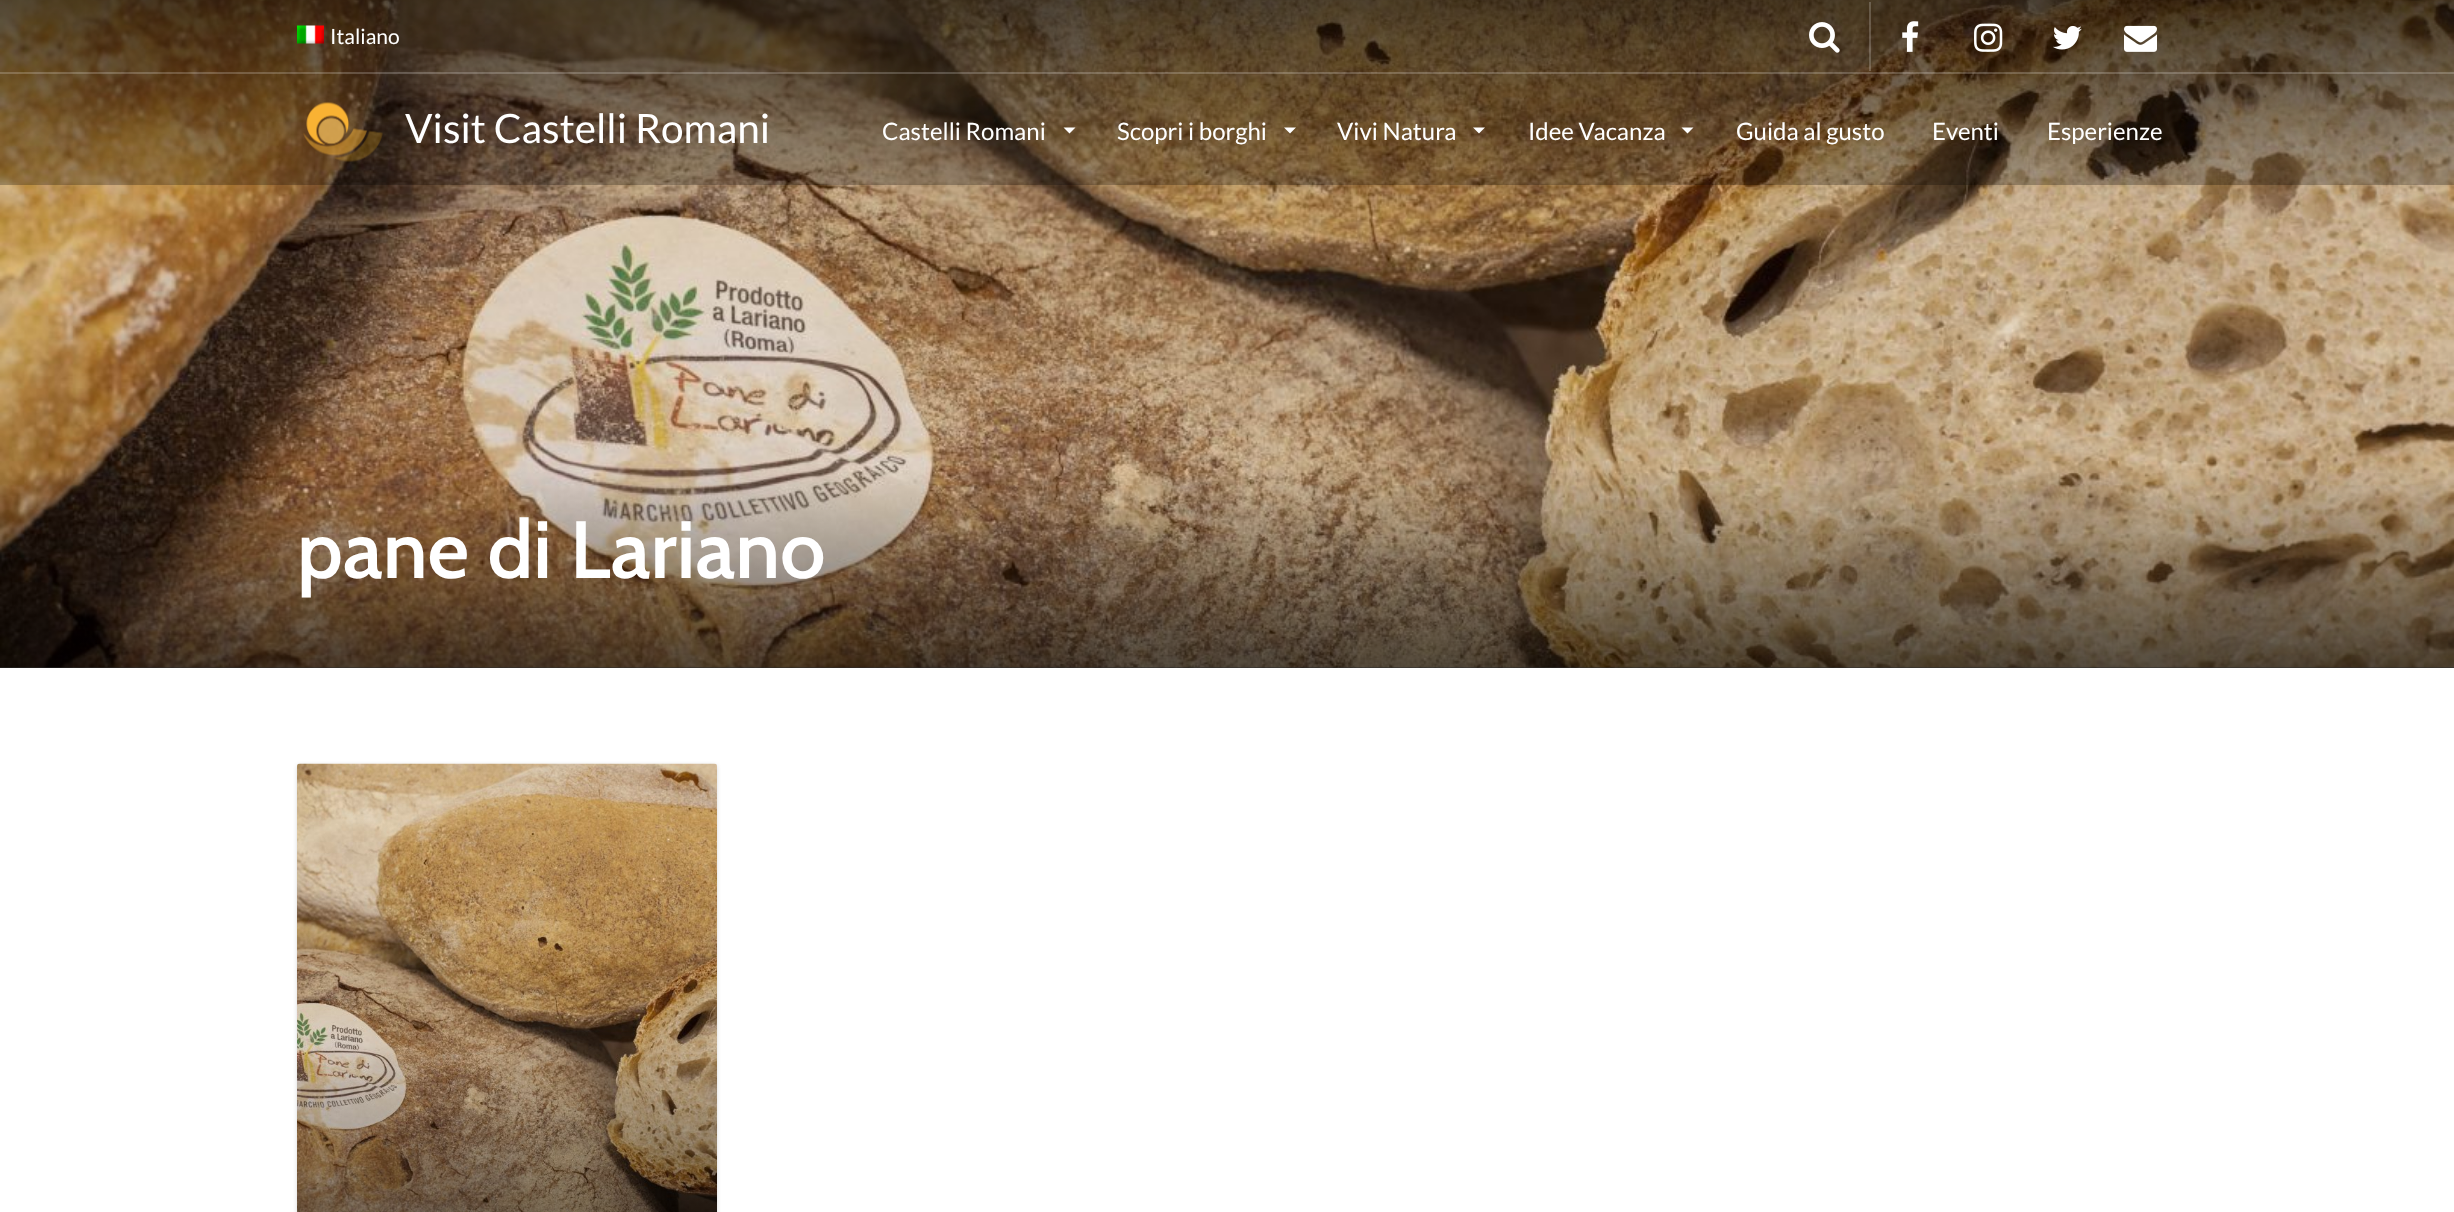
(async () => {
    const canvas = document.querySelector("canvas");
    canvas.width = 2454;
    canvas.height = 1212;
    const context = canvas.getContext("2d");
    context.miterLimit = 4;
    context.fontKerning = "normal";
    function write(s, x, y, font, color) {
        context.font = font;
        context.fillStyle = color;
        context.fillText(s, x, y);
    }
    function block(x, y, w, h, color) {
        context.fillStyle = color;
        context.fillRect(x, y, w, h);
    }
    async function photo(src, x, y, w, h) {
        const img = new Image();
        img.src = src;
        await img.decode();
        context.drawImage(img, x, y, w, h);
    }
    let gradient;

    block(0, 0, 2454, 1212, "rgb(255, 255, 255)");
    block(0, 667, 2454, 1, "rgb(108, 110, 115)");
    await photo("media/8.png", 0, 0, 2454, 668);
    gradient = context.createLinearGradient(1227, 0, 1227, 668);
    gradient.addColorStop(0, "rgba(0, 0, 0, 0.5)");
    gradient.addColorStop(0.25, "rgba(0, 0, 0, 0)");
    gradient.addColorStop(0.7, "rgba(0, 0, 0, 0)");
    gradient.addColorStop(1, "rgba(0, 0, 0, 0.6)");
    context.fillStyle = gradient;
    context.fillRect(0, 0, 2454, 668);
    block(0, 0, 2454, 185, "rgba(0, 0, 0, 0.26)");
    block(0, 72, 2454, 2, "rgba(255, 255, 255, 0.2)");
    await photo("media/1.png", 297, 25, 27, 19);
    write("Italiano", 330, 44, "21px Lato", "rgb(255, 255, 255)");
    block(1869, 2, 2, 69, "rgba(255, 255, 255, 0.2)");
    await photo("media/2.png", 1809, 22, 31, 31);
    await photo("media/3.png", 1902, 21, 17, 31);
    await photo("media/4.png", 1974, 23, 29, 29);
    await photo("media/5.png", 2053, 25, 29, 25);
    await photo("media/6.png", 2124, 25, 33, 27);
    await photo("media/7.png", 303, 101, 80, 61);
    write("Visit Castelli Romani", 405, 143, "40.5px Lato", "rgb(255, 255, 255)");
    write("Castelli Romani", 882, 140, "24px Lato", "rgb(255, 255, 255)");
    context.beginPath();
    context.moveTo(1063.5, 127.5);
    context.lineTo(1075.5, 127.5);
    context.lineTo(1069.5, 133.5);
    context.closePath();
    context.fill();
    write("Scopri i borghi", 1117, 140, "24px Lato", "rgb(255, 255, 255)");
    context.beginPath();
    context.moveTo(1284, 127.5);
    context.lineTo(1296, 127.5);
    context.lineTo(1290, 133.5);
    context.closePath();
    context.fill();
    write("Vivi Natura", 1337, 140, "24px Lato", "rgb(255, 255, 255)");
    context.beginPath();
    context.moveTo(1473, 127.5);
    context.lineTo(1485, 127.5);
    context.lineTo(1479, 133.5);
    context.closePath();
    context.fill();
    write("Idee Vacanza", 1528, 140, "24px Lato", "rgb(255, 255, 255)");
    context.beginPath();
    context.moveTo(1681.5, 127.5);
    context.lineTo(1693.5, 127.5);
    context.lineTo(1687.5, 133.5);
    context.closePath();
    context.fill();
    write("Guida al gusto", 1736, 140, "24px Lato", "rgb(255, 255, 255)");
    write("Eventi", 1932, 140, "24px Lato", "rgb(255, 255, 255)");
    write("Esperienze", 2047, 140, "24px Lato", "rgb(255, 255, 255)");
    write("pane di Lariano", 297, 578, "600 81px Cabin", "rgb(255, 255, 255)");
    context.fillStyle = "rgba(0, 0, 0, 0.15)";
    context.filter = "blur(2px)";
    context.beginPath();
    context.roundRect(297, 765, 420, 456, 3);
    context.fill();
    context.filter = "none";
    await photo("media/9.png", 297, 763, 420, 449);
    gradient = context.createLinearGradient(507, 764, 507, 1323);
    gradient.addColorStop(0.5, "rgba(0, 0, 0, 0.03)");
    gradient.addColorStop(1, "rgba(0, 0, 0, 0.66)");
    context.fillStyle = gradient;
    context.fillRect(297, 764, 420, 448);
})();
